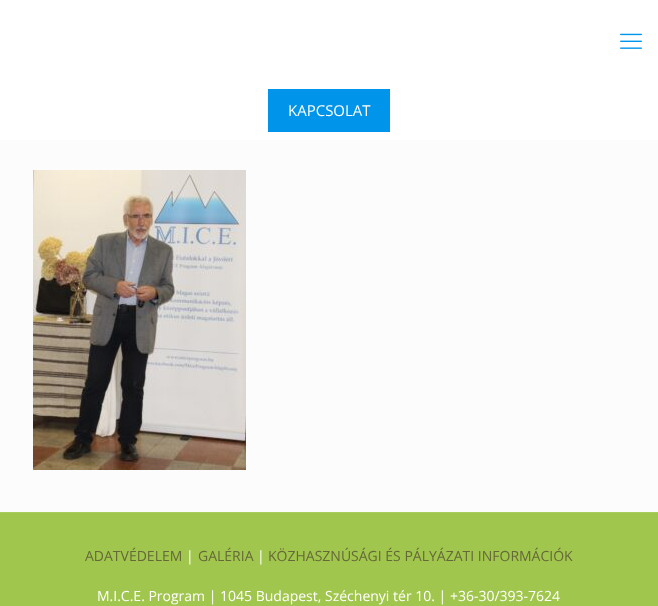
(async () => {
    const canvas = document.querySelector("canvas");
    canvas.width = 658;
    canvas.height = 606;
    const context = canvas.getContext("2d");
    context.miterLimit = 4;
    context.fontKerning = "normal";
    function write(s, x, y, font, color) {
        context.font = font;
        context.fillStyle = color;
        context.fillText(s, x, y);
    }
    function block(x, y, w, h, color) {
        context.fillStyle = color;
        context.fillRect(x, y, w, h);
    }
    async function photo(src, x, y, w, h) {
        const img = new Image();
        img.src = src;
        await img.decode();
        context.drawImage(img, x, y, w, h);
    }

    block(0, 0, 658, 606, "rgb(252, 252, 252)");
    block(0, 0, 658, 140, "rgb(255, 255, 255)");
    await photo("media/1.png", 620, 33, 22, 16);
    block(268, 89, 122, 43, "rgb(0, 149, 235)");
    write("KAPCSOLAT", 288, 116, "15px Open Sans", "rgb(255, 255, 255)");
    await photo("media/2.png", 33, 170, 213, 300);
    block(0, 513, 658, 93, "rgb(161, 198, 77)");
    block(0, 512, 658, 1, "rgb(170, 204, 95)");
    write("ADATVÉDELEM", 85, 561, "14px Open Sans", "rgb(101, 104, 57)");
    write("|", 186, 561, "14px Open Sans", "rgb(255, 255, 255)");
    write("GALÉRIA", 198, 561, "14px Open Sans", "rgb(101, 104, 57)");
    write("|", 257, 561, "14px Open Sans", "rgb(255, 255, 255)");
    write("KÖZHASZNÚSÁGI ÉS PÁLYÁZATI INFORMÁCIÓK", 268, 561, "14px Open Sans", "rgb(101, 104, 57)");
    write("M.I.C.E. Program | 1045 Budapest, Széchenyi tér 10. | +36-30/393-7624", 97, 601, "14px Open Sans", "rgb(255, 255, 255)");
})();
